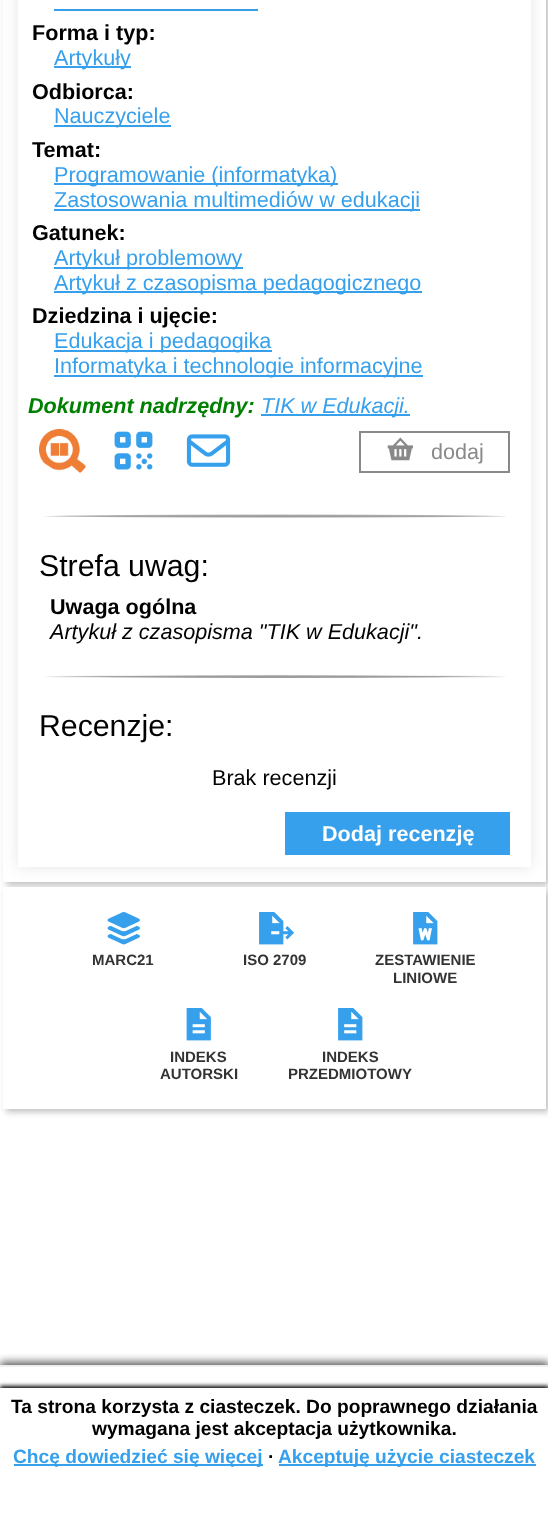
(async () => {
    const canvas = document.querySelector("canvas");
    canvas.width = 548;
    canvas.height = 1540;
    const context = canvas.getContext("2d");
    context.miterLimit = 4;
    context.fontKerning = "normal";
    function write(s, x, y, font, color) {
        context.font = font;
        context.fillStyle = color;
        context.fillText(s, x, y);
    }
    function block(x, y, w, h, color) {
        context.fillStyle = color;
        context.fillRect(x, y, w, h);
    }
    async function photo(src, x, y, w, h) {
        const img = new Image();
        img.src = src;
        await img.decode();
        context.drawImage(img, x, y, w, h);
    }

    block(0, 0, 548, 1540, "rgb(255, 255, 255)");
    context.save();
    context.beginPath();
    context.moveTo(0, 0);
    context.lineTo(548, 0);
    context.lineTo(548, 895);
    context.lineTo(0, 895);
    context.closePath();
    context.moveTo(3, -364);
    context.lineTo(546, -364);
    context.lineTo(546, 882);
    context.lineTo(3, 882);
    context.closePath();
    context.clip("evenodd");
    context.fillStyle = "rgba(0, 0, 0, 0.25)";
    context.filter = "blur(3px)";
    context.beginPath();
    context.rect(6, -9, 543, 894);
    context.fill();
    context.filter = "none";
    context.restore();
    context.save();
    context.beginPath();
    context.moveTo(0, 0);
    context.lineTo(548, 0);
    context.lineTo(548, 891);
    context.lineTo(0, 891);
    context.closePath();
    context.moveTo(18, -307);
    context.lineTo(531, -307);
    context.lineTo(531, 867);
    context.lineTo(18, 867);
    context.closePath();
    context.clip("evenodd");
    context.fillStyle = "rgba(0, 0, 0, 0.1)";
    context.filter = "blur(7.5px)";
    context.beginPath();
    context.rect(18, -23, 513, 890);
    context.fill();
    context.filter = "none";
    context.restore();
    block(54, 9, 204, 2, "rgb(54, 160, 236)");
    write("Forma i typ:", 32, 40, "bold 21.6px Liberation Sans", "rgb(0, 0, 0)");
    block(54, 66, 77, 2, "rgb(54, 160, 236)");
    write("Artykuły", 54, 65, "21.6px Liberation Sans", "rgb(54, 160, 236)");
    write("Odbiorca:", 32, 99, "bold 21.6px Liberation Sans", "rgb(0, 0, 0)");
    block(54, 125, 117, 2, "rgb(54, 160, 236)");
    write("Nauczyciele", 54, 123, "21.6px Liberation Sans", "rgb(54, 160, 236)");
    write("Temat:", 32, 157, "bold 21.6px Liberation Sans", "rgb(0, 0, 0)");
    block(54, 183, 284, 2, "rgb(54, 160, 236)");
    write("Programowanie (informatyka)", 54, 182, "21.6px Liberation Sans", "rgb(54, 160, 236)");
    block(54, 209, 366, 2, "rgb(54, 160, 236)");
    write("Zastosowania multimediów w edukacji", 54, 207, "21.6px Liberation Sans", "rgb(54, 160, 236)");
    write("Gatunek:", 32, 240, "bold 21.6px Liberation Sans", "rgb(0, 0, 0)");
    block(54, 267, 189, 2, "rgb(54, 160, 236)");
    write("Artykuł problemowy", 54, 265, "21.6px Liberation Sans", "rgb(54, 160, 236)");
    block(54, 291, 368, 2, "rgb(54, 160, 236)");
    write("Artykuł z czasopisma pedagogicznego", 54, 290, "21.6px Liberation Sans", "rgb(54, 160, 236)");
    write("Dziedzina i ujęcie:", 32, 323, "bold 21.6px Liberation Sans", "rgb(0, 0, 0)");
    block(54, 350, 218, 2, "rgb(54, 160, 236)");
    write("Edukacja i pedagogika", 54, 348, "21.6px Liberation Sans", "rgb(54, 160, 236)");
    block(54, 375, 369, 2, "rgb(54, 160, 236)");
    write("Informatyka i technologie informacyjne", 54, 373, "21.6px Liberation Sans", "rgb(54, 160, 236)");
    write("Dokument nadrzędny:", 28, 413, "italic bold 21.6px Liberation Sans", "rgb(0, 128, 0)");
    block(261, 414, 149, 2, "rgb(54, 160, 236)");
    write("TIK w Edukacji.", 261, 413, "italic 21.6px Liberation Sans", "rgb(54, 160, 236)");
    await photo("media/1.png", 39, 429, 47, 44);
    await photo("media/2.png", 114, 431, 39, 39);
    await photo("media/3.png", 186, 434, 45, 33);
    context.strokeStyle = "rgb(136, 137, 137)";
    context.lineWidth = 2;
    context.strokeRect(360, 432, 149, 40);
    await photo("media/4.png", 387, 437, 26, 24);
    write("dodaj", 431, 459, "21.6px Liberation Sans", "rgb(136, 137, 137)");
    await photo("media/5.png", 44, 514, 463, 4);
    write("Strefa uwag:", 39, 576, "30.25px Liberation Sans", "rgb(0, 0, 0)");
    write("Uwaga ogólna", 50, 614, "bold 21.6px Liberation Sans", "rgb(0, 0, 0)");
    write("Artykuł z czasopisma \"TIK w Edukacji\".", 50, 639, "italic 21.6px Liberation Sans", "rgb(0, 0, 0)");
    await photo("media/6.png", 45, 675, 461, 3);
    write("Recenzje:", 39, 736, "30.25px Liberation Sans", "rgb(0, 0, 0)");
    write("Brak recenzji", 212, 785, "21.6px Liberation Sans", "rgb(0, 0, 0)");
    block(285, 812, 225, 43, "rgb(54, 160, 236)");
    write("Dodaj recenzję", 322, 841, "bold 21.6px Liberation Sans", "rgb(255, 255, 255)");
    context.save();
    context.beginPath();
    context.moveTo(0, 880);
    context.lineTo(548, 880);
    context.lineTo(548, 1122);
    context.lineTo(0, 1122);
    context.closePath();
    context.moveTo(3, 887);
    context.lineTo(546, 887);
    context.lineTo(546, 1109);
    context.lineTo(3, 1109);
    context.closePath();
    context.clip("evenodd");
    context.fillStyle = "rgba(0, 0, 0, 0.25)";
    context.filter = "blur(3px)";
    context.beginPath();
    context.rect(6, 890, 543, 222);
    context.fill();
    context.filter = "none";
    context.restore();
    block(3, 887, 543, 222, "rgba(255, 255, 255, 0.95)");
    await photo("media/7.png", 107, 912, 33, 33);
    write("MARC21", 92, 965, "bold 15px Liberation Sans", "rgb(51, 51, 51)");
    await photo("media/8.png", 259, 912, 35, 33);
    write("ISO 2709", 243, 965, "bold 15px Liberation Sans", "rgb(51, 51, 51)");
    await photo("media/9.png", 413, 912, 25, 33);
    write("ZESTAWIENIE", 375, 965, "bold 15px Liberation Sans", "rgb(51, 51, 51)");
    write("LINIOWE", 393, 983, "bold 15px Liberation Sans", "rgb(51, 51, 51)");
    await photo("media/10.png", 186, 1008, 25, 33);
    write("INDEKS", 170, 1062, "bold 15px Liberation Sans", "rgb(51, 51, 51)");
    write("AUTORSKI", 160, 1079, "bold 15px Liberation Sans", "rgb(51, 51, 51)");
    await photo("media/11.png", 338, 1008, 25, 33);
    write("INDEKS", 322, 1062, "bold 15px Liberation Sans", "rgb(51, 51, 51)");
    write("PRZEDMIOTOWY", 288, 1079, "bold 15px Liberation Sans", "rgb(51, 51, 51)");
    context.save();
    context.beginPath();
    context.rect(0, 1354, 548, 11);
    context.clip();
    context.fillStyle = "rgba(0, 0, 0, 0.65)";
    context.filter = "blur(4.5px)";
    context.beginPath();
    context.rect(0, 1362, 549, 176);
    context.fill();
    context.filter = "none";
    context.restore();
    block(0, 1365, 548, 2, "rgb(238, 238, 238)");
    context.fillStyle = "rgb(0, 0, 0)";
    context.filter = "blur(2px)";
    context.beginPath();
    context.rect(0, 1386, 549, 153);
    context.fill();
    context.filter = "none";
    block(0, 1388, 548, 152, "rgb(255, 255, 255)");
    write("Ta strona korzysta z ciasteczek. Do poprawnego działania", 11, 1413, "bold 19.2px Liberation Sans", "rgb(0, 0, 0)");
    write("wymagana jest akceptacja użytkownika.", 92, 1435, "bold 19.2px Liberation Sans", "rgb(0, 0, 0)");
    block(14, 1464, 249, 2, "rgb(54, 160, 236)");
    write("Chcę dowiedzieć się więcej", 13, 1463, "bold 19.2px Liberation Sans", "rgb(54, 160, 236)");
    write("∙", 268, 1463, "bold 19.2px Liberation Sans", "rgb(0, 0, 0)");
    block(279, 1464, 257, 2, "rgb(54, 160, 236)");
    write("Akceptuję użycie ciasteczek", 278, 1463, "bold 19.2px Liberation Sans", "rgb(54, 160, 236)");
})();
